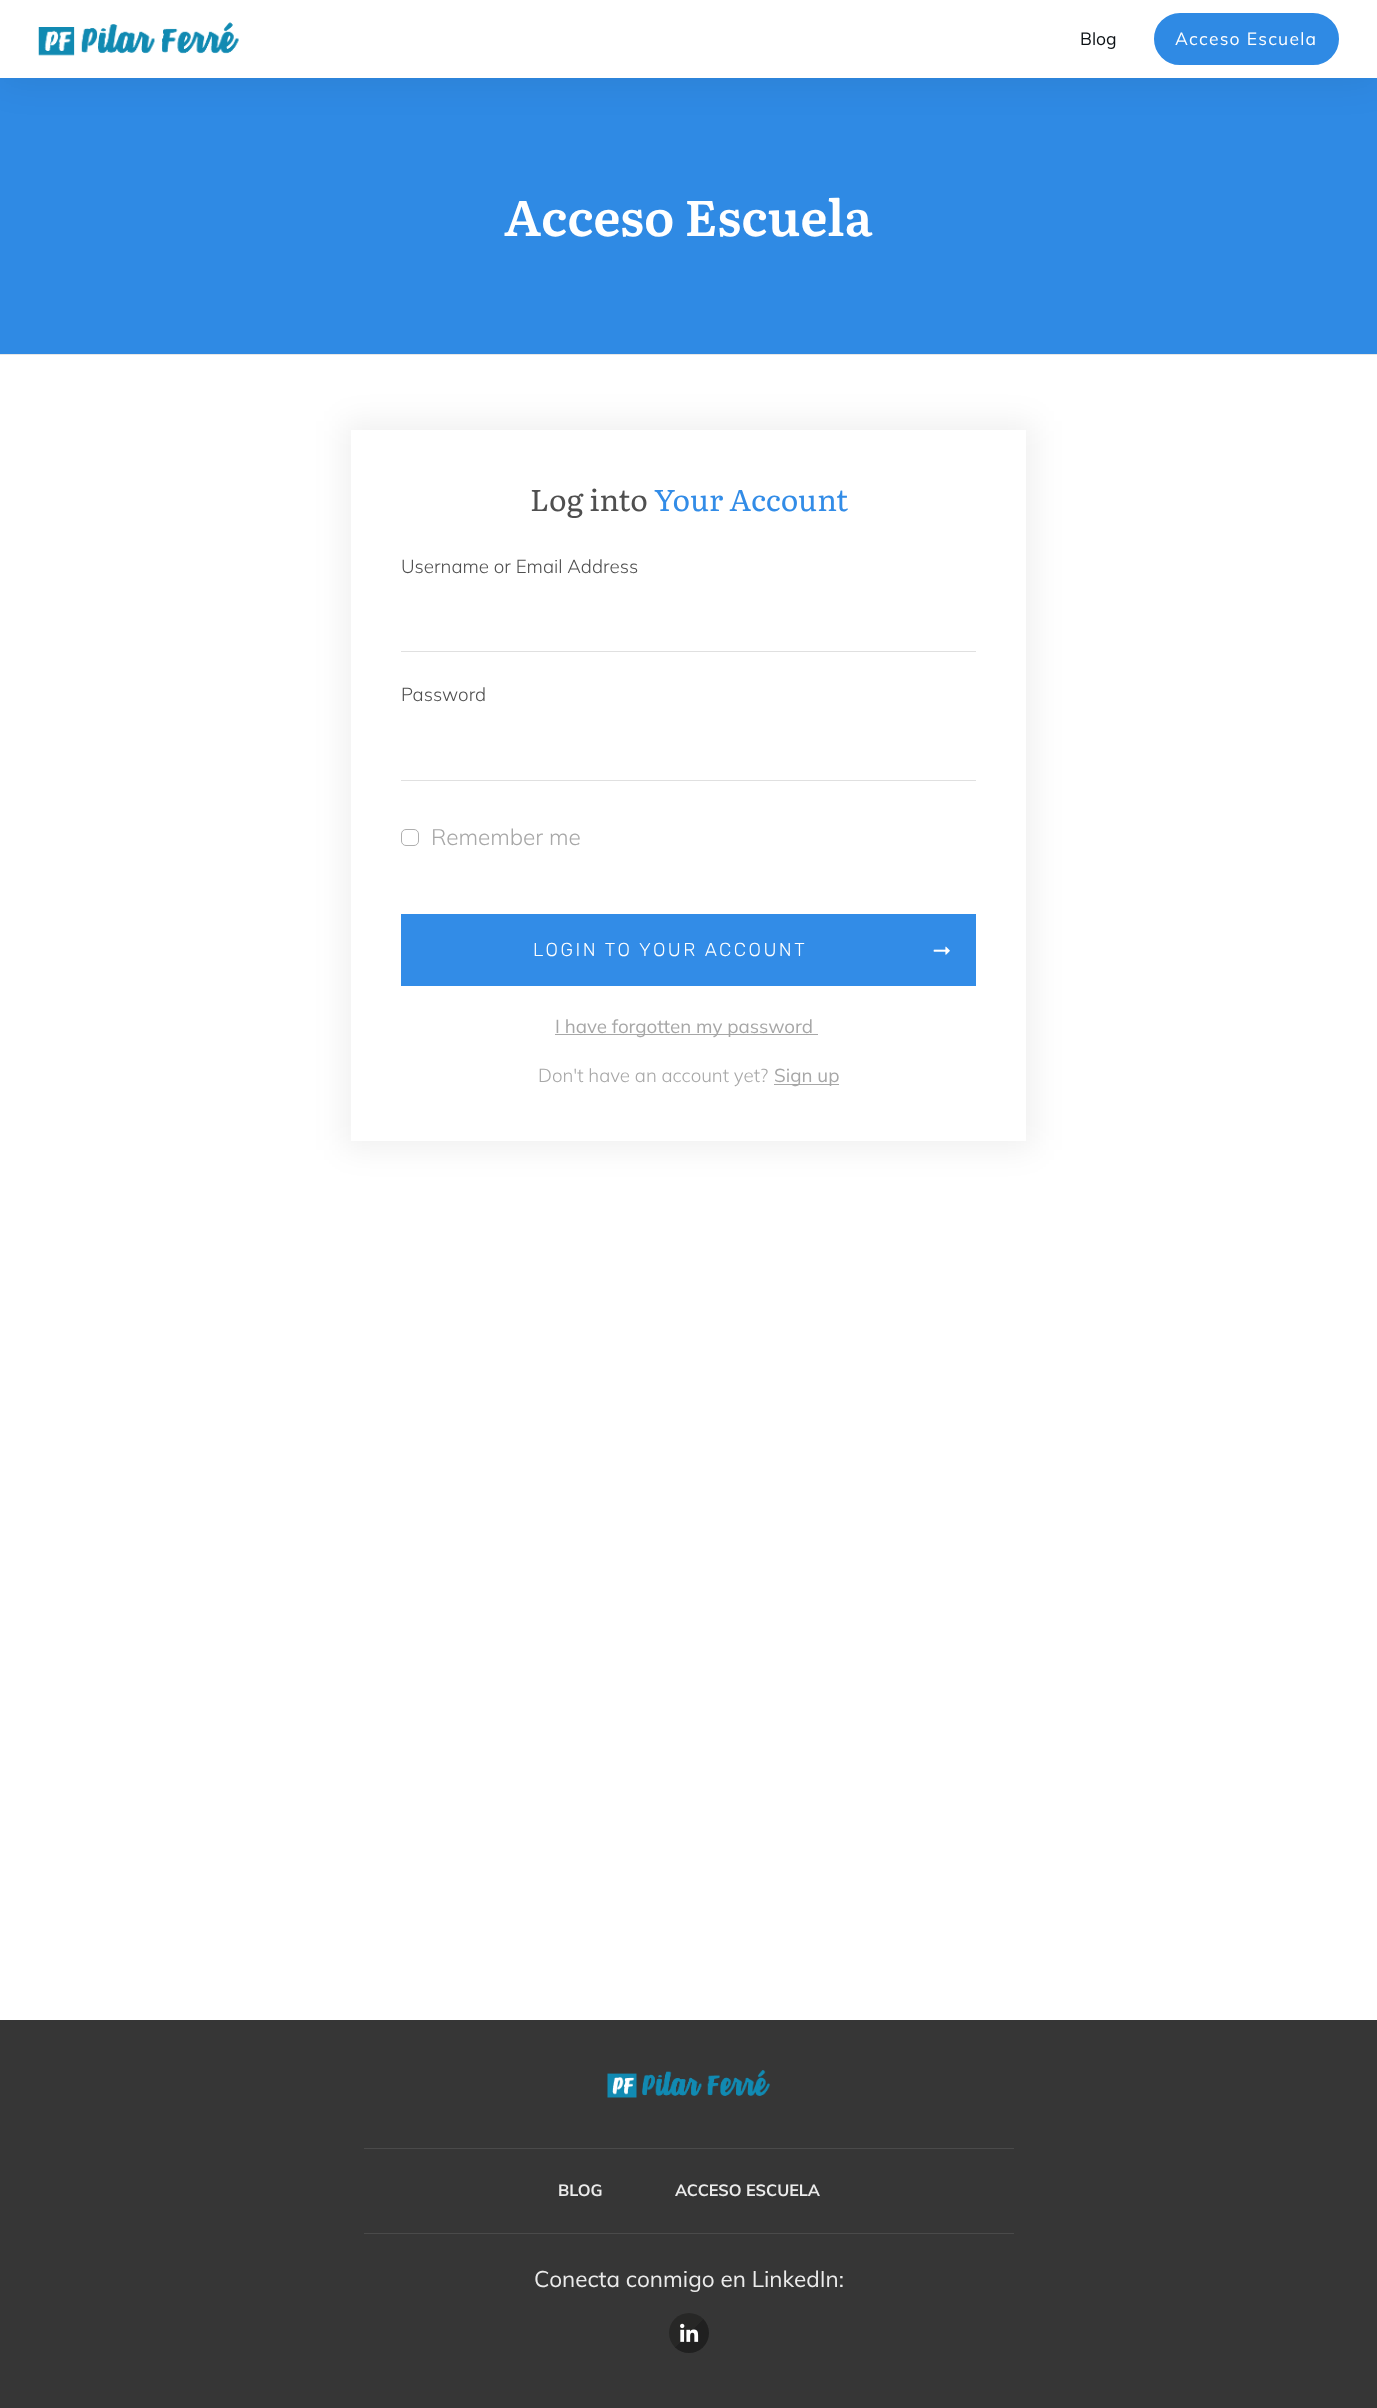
(async () => {
    const canvas = document.querySelector("canvas");
    canvas.width = 1377;
    canvas.height = 2408;
    const context = canvas.getContext("2d");
    context.miterLimit = 4;
    context.fontKerning = "normal";
    function write(s, x, y, font, color) {
        context.font = font;
        context.fillStyle = color;
        context.fillText(s, x, y);
    }
    function block(x, y, w, h, color) {
        context.fillStyle = color;
        context.fillRect(x, y, w, h);
    }
    async function photo(src, x, y, w, h) {
        const img = new Image();
        img.src = src;
        await img.decode();
        context.drawImage(img, x, y, w, h);
    }
    let gradient;

    block(0, 0, 1377, 2408, "rgb(255, 255, 255)");
    block(0, 78, 1377, 276, "rgb(47, 138, 228)");
    context.fillStyle = "rgba(0, 0, 0, 0.08)";
    context.filter = "blur(19px)";
    context.beginPath();
    context.rect(0, 3, 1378, 77);
    context.fill();
    context.filter = "none";
    block(0, 0, 1377, 78, "rgb(255, 255, 255)");
    await photo("media/1.png", 38, 22, 201, 34);
    write("Blog", 1080, 45, "17.5px Muli", "rgb(12, 17, 21)");
    context.fillStyle = "rgb(47, 138, 228)";
    context.beginPath();
    context.roundRect(1155.5, 14.5, 182, 49, 24.5);
    context.fill();
    context.strokeStyle = "rgb(47, 138, 228)";
    context.lineWidth = 3;
    context.stroke();
    context.letterSpacing = "1.25px";
    write("Acceso Escuela", 1175, 45, "17.5px Muli", "rgb(255, 255, 255)");
    block(0, 354, 1377, 1, "rgb(230, 230, 230)");
    context.letterSpacing = "0px";
    write("Acceso Escuela", 504, 236, "600 50px Literata", "rgb(255, 255, 255)");
    context.fillStyle = "rgba(0, 0, 0, 0.06)";
    context.filter = "blur(15.5px)";
    context.beginPath();
    context.rect(343, 421, 692, 729);
    context.fill();
    context.filter = "none";
    block(351, 430, 675, 711, "rgb(255, 255, 255)");
    write("Log into", 530, 511, "30px Literata", "rgb(79, 79, 79)");
    write("Your Account", 654, 511, "30px Literata", "rgb(50, 140, 231)");
    write("Username or Email Address", 401, 573, "300 18.75px Mulish", "rgb(79, 79, 79)");
    block(401, 651, 575, 1, "rgb(224, 224, 224)");
    write("Password", 401, 701, "300 18.75px Mulish", "rgb(79, 79, 79)");
    block(401, 780, 575, 1, "rgb(224, 224, 224)");
    context.beginPath();
    context.roundRect(401.5, 829.5, 17, 16, 4.5);
    context.strokeStyle = "rgb(175, 175, 175)";
    context.lineWidth = 1;
    context.stroke();
    write("Remember me", 431, 845, "300 22.5px Mulish", "rgb(167, 167, 167)");
    block(401, 914, 575, 72, "rgb(50, 140, 231)");
    context.letterSpacing = "2.5px";
    write("LOGIN TO YOUR ACCOUNT", 533, 956, "300 18.75px Rubik", "rgb(255, 255, 255)");
    await photo("media/2.png", 933, 946, 17, 9);
    block(555, 1034, 263, 1, "rgb(167, 167, 167)");
    context.letterSpacing = "0px";
    write("I have forgotten my password", 555, 1033, "18.75px Mulish", "rgb(167, 167, 167)");
    write("Don't have an account yet?", 538, 1082, "300 18.75px Mulish", "rgb(167, 167, 167)");
    block(774, 1084, 65, 1, "rgb(167, 167, 167)");
    write("Sign up", 774, 1082, "18.75px Mulish", "rgb(167, 167, 167)");
    block(0, 2020, 1377, 388, "rgb(54, 54, 54)");
    await photo("media/3.png", 607, 2070, 163, 28);
    block(364, 2148, 650, 1, "rgb(74, 74, 74)");
    block(364, 2233, 650, 1, "rgb(74, 74, 74)");
    write("BLOG", 558, 2196, "bold 16.25px Muli", "rgb(235, 235, 235)");
    write("ACCESO ESCUELA", 675, 2196, "bold 16.25px Muli", "rgb(235, 235, 235)");
    write("Conecta conmigo en LinkedIn:", 534, 2287, "22.5px Muli", "rgb(235, 235, 235)");
    gradient = context.createLinearGradient(669, 2313, 709, 2353);
    gradient.addColorStop(0.5, "rgb(39, 39, 38)");
    gradient.addColorStop(0.5, "rgb(32, 32, 32)");
    context.fillStyle = gradient;
    context.beginPath();
    context.arc(689, 2333, 20, 0, Math.PI * 2);
    context.fill();
    await photo("media/4.png", 680, 2323, 19, 19);
})();
